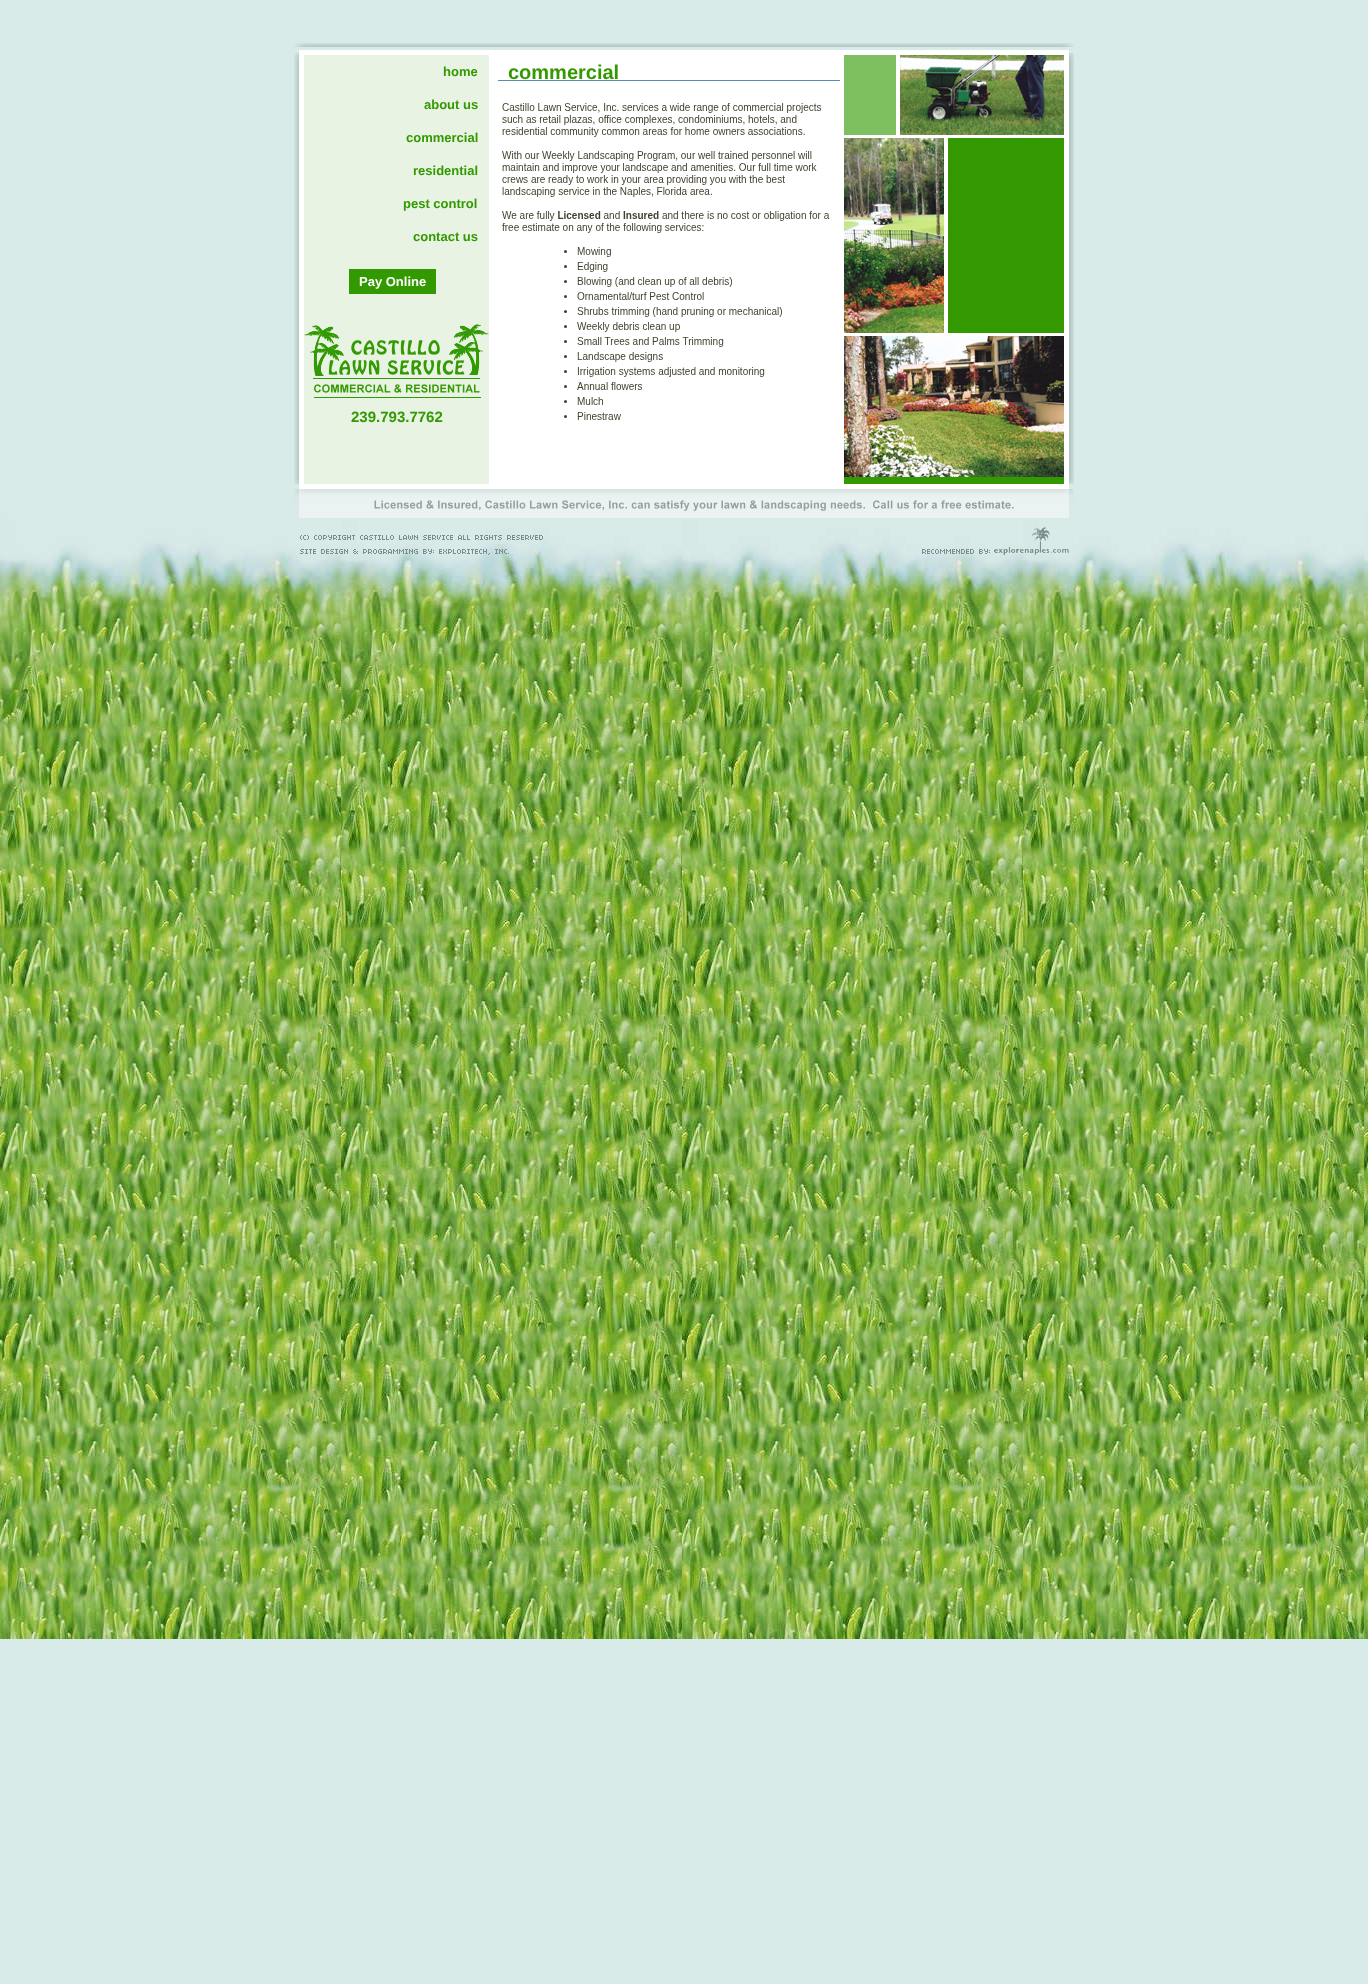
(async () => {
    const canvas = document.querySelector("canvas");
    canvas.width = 1368;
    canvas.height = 1984;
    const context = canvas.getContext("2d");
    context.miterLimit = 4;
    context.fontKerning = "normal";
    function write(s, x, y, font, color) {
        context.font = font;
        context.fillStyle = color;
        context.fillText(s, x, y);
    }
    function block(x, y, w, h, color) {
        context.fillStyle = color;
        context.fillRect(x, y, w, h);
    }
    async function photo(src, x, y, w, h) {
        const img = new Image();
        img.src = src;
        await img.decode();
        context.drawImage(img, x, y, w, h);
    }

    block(0, 0, 1368, 1984, "rgb(255, 255, 255)");
    await photo("media/1.png", 0, 0, 1368, 1984);
    await photo("media/2.png", 294, 43, 780, 4);
    await photo("media/3.png", 294, 53, 5, 431);
    block(299, 50, 770, 439, "rgb(255, 255, 255)");
    block(304, 55, 185, 429, "rgb(232, 243, 227)");
    write("home", 443, 76, "bold 13px Liberation Sans", "rgb(51, 153, 0)");
    write("about us", 424, 109, "bold 13px Liberation Sans", "rgb(51, 153, 0)");
    write("commercial", 406, 142, "bold 13px Liberation Sans", "rgb(51, 153, 0)");
    write("residential", 413, 175, "bold 13px Liberation Sans", "rgb(51, 153, 0)");
    write("pest control", 403, 208, "bold 13px Liberation Sans", "rgb(51, 153, 0)");
    write("contact us", 413, 241, "bold 13px Liberation Sans", "rgb(51, 153, 0)");
    block(349, 269, 87, 25, "rgb(51, 153, 0)");
    write("Pay Online", 359, 286, "bold 13px Liberation Sans", "rgb(255, 255, 255)");
    await photo("media/4.png", 304, 324, 185, 74);
    write("239.793.7762", 351, 422, "bold 15px Liberation Sans", "rgb(51, 153, 0)");
    block(844, 477, 220, 7, "rgb(51, 153, 0)");
    block(498, 80, 342, 1, "rgb(92, 140, 180)");
    write("commercial", 508, 79, "bold 20px Liberation Sans", "rgb(51, 153, 0)");
    await photo("media/5.png", 502, 103, 328, 317);
    await photo("media/6.png", 844, 55, 220, 422);
    await photo("media/7.png", 1069, 53, 5, 431);
    await photo("media/8.png", 294, 489, 780, 29);
    await photo("media/9.png", 300, 535, 243, 20);
    await photo("media/10.png", 922, 527, 147, 28);
})();
